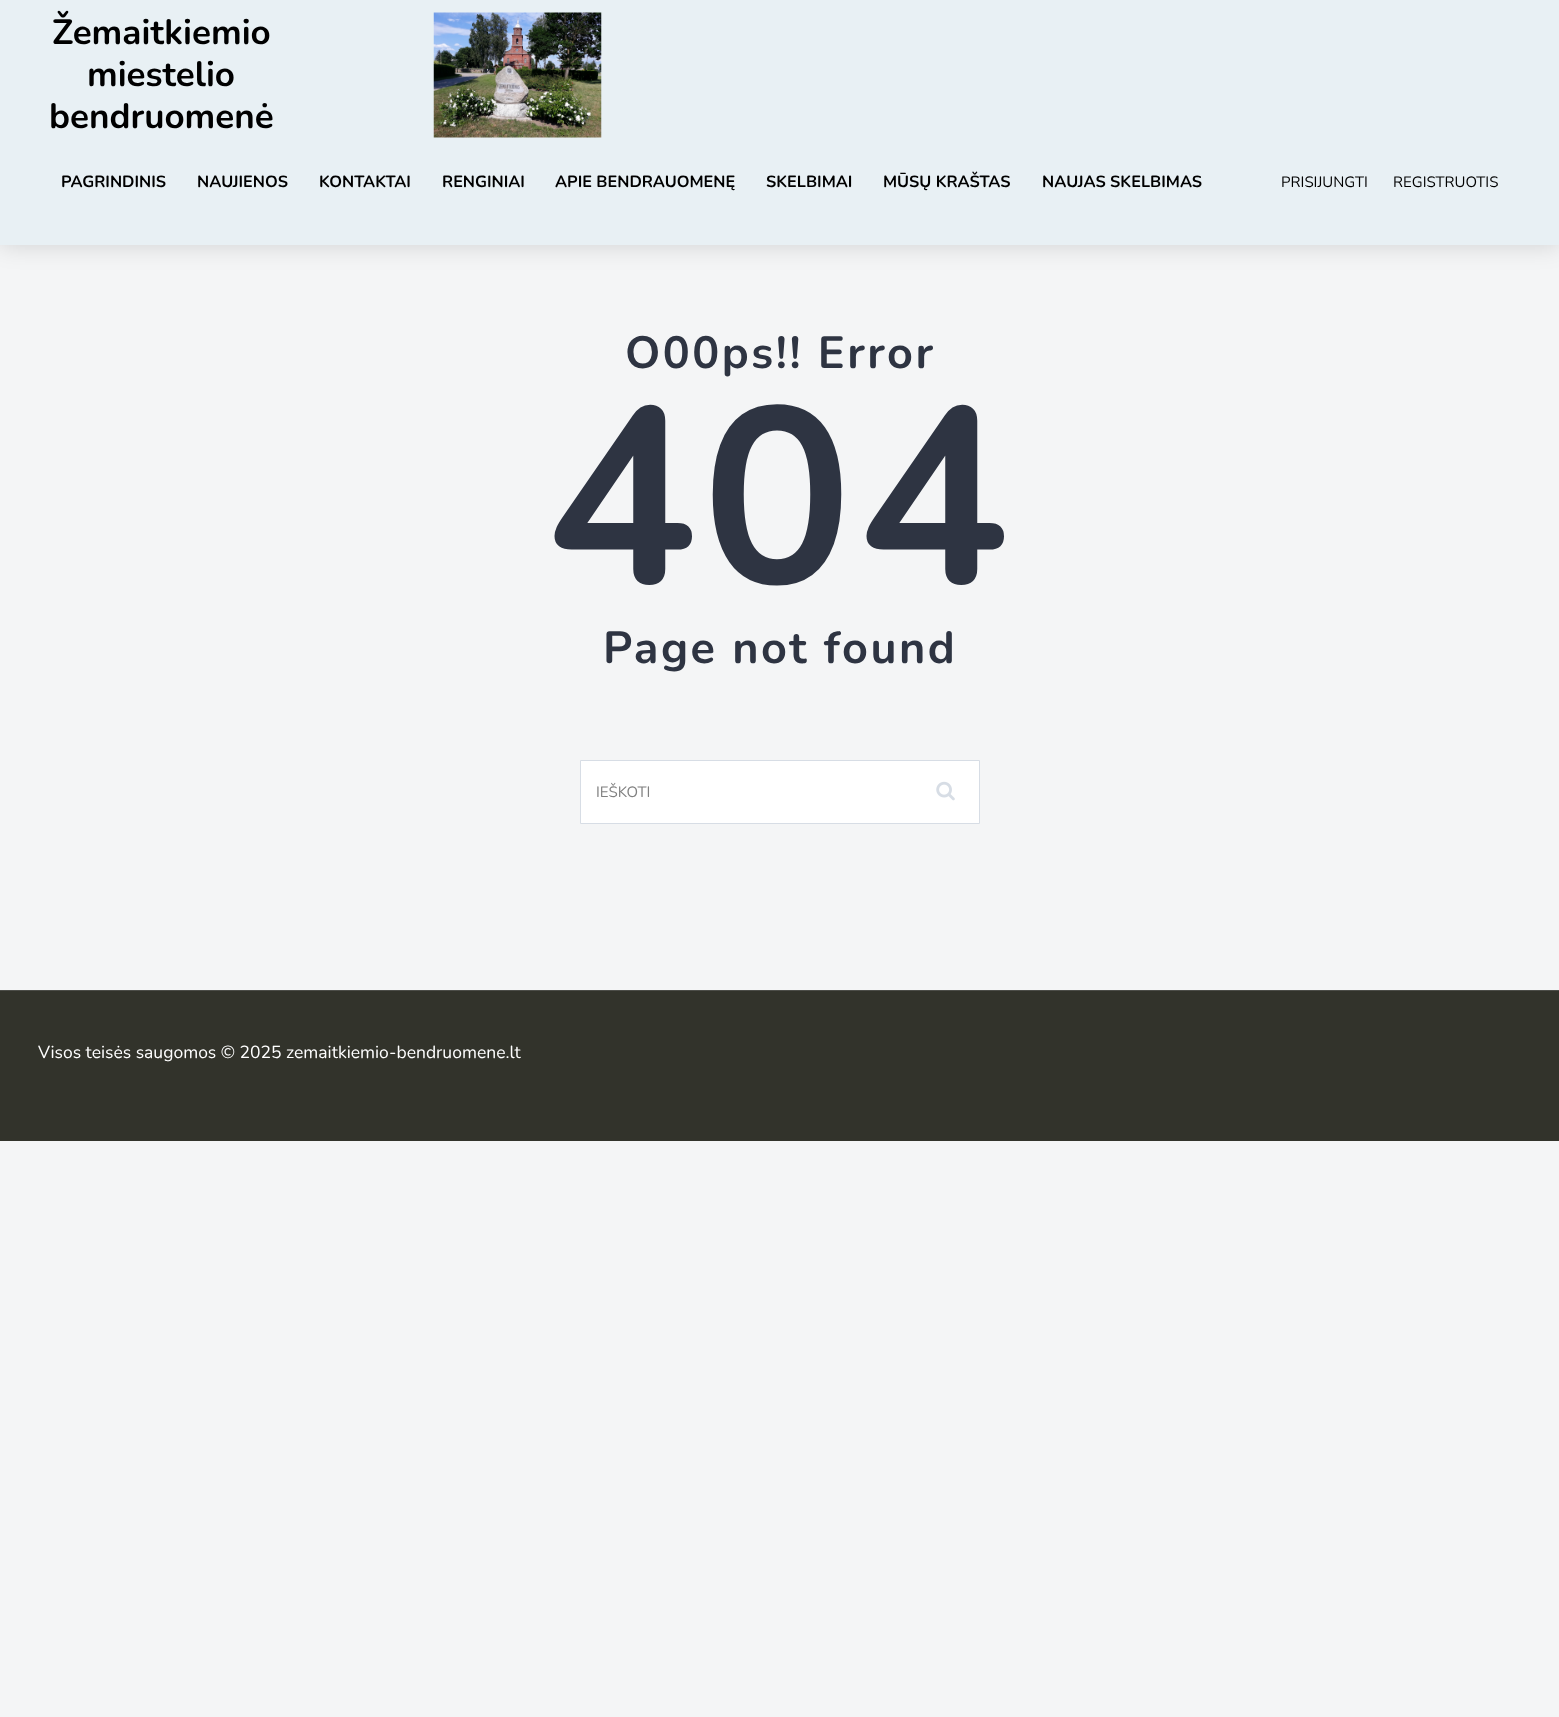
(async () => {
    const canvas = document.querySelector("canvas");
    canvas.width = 1559;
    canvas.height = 1717;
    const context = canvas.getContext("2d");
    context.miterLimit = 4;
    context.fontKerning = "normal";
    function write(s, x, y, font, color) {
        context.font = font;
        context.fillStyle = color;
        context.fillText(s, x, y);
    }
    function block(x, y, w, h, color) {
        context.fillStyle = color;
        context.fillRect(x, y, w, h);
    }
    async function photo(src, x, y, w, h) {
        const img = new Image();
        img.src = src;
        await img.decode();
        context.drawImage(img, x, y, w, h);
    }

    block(0, 0, 1559, 1717, "rgb(244, 245, 246)");
    context.fillStyle = "rgba(0, 0, 0, 0.15)";
    context.filter = "blur(12.5px)";
    context.beginPath();
    context.rect(0, 0, 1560, 245);
    context.fill();
    context.filter = "none";
    block(0, 0, 1559, 245, "rgb(232, 240, 244)");
    write("Žemaitkiemio", 52, 44, "bold 35px Nunito", "rgb(0, 0, 0)");
    write("miestelio", 87, 86, "bold 35px Nunito", "rgb(0, 0, 0)");
    write("bendruomenė", 49, 128, "bold 35px Nunito", "rgb(0, 0, 0)");
    await photo("media/1.png", 433, 12, 169, 126);
    write("PAGRINDINIS", 61, 187, "bold 16.25px Nunito", "rgb(0, 0, 0)");
    write("NAUJIENOS", 197, 187, "bold 16.25px Nunito", "rgb(0, 0, 0)");
    write("KONTAKTAI", 319, 187, "bold 16.25px Nunito", "rgb(0, 0, 0)");
    write("RENGINIAI", 442, 187, "bold 16.25px Nunito", "rgb(0, 0, 0)");
    write("APIE BENDRAUOMENĘ", 555, 187, "bold 16.25px Nunito", "rgb(0, 0, 0)");
    write("SKELBIMAI", 766, 187, "bold 16.25px Nunito", "rgb(0, 0, 0)");
    write("MŪSŲ KRAŠTAS", 883, 187, "bold 16.25px Nunito", "rgb(0, 0, 0)");
    write("NAUJAS SKELBIMAS", 1042, 187, "bold 16.25px Nunito", "rgb(0, 0, 0)");
    write("PRISIJUNGTI", 1281, 187, "15px Nunito", "rgb(0, 0, 0)");
    write("REGISTRUOTIS", 1393, 187, "15px Nunito", "rgb(0, 0, 0)");
    context.letterSpacing = "2.5px";
    write("O00ps!! Error", 625, 368, "bold 45px Nunito", "rgb(46, 52, 66)");
    context.letterSpacing = "6px";
    write("404", 546, 583, "bold 250px Nunito", "rgb(46, 52, 66)");
    context.letterSpacing = "2.5px";
    write("Page not found", 603, 663, "bold 45px Nunito", "rgb(46, 52, 66)");
    context.fillStyle = "rgb(255, 255, 255)";
    context.beginPath();
    context.rect(580.5, 760.5, 399, 63);
    context.fill();
    context.strokeStyle = "rgb(215, 221, 229)";
    context.stroke();
    context.letterSpacing = "0px";
    write("IEŠKOTI", 596, 797, "15px Nunito", "rgb(128, 128, 128)");
    await photo("media/2.png", 936, 781, 19, 20);
    block(0, 991, 1559, 150, "rgb(50, 51, 43)");
    block(0, 990, 1559, 1, "rgb(76, 77, 72)");
    write("Visos teisės saugomos © 2025 zemaitkiemio-bendruomene.lt", 38, 1058, "17.5px Nunito", "rgb(255, 255, 255)");
})();
